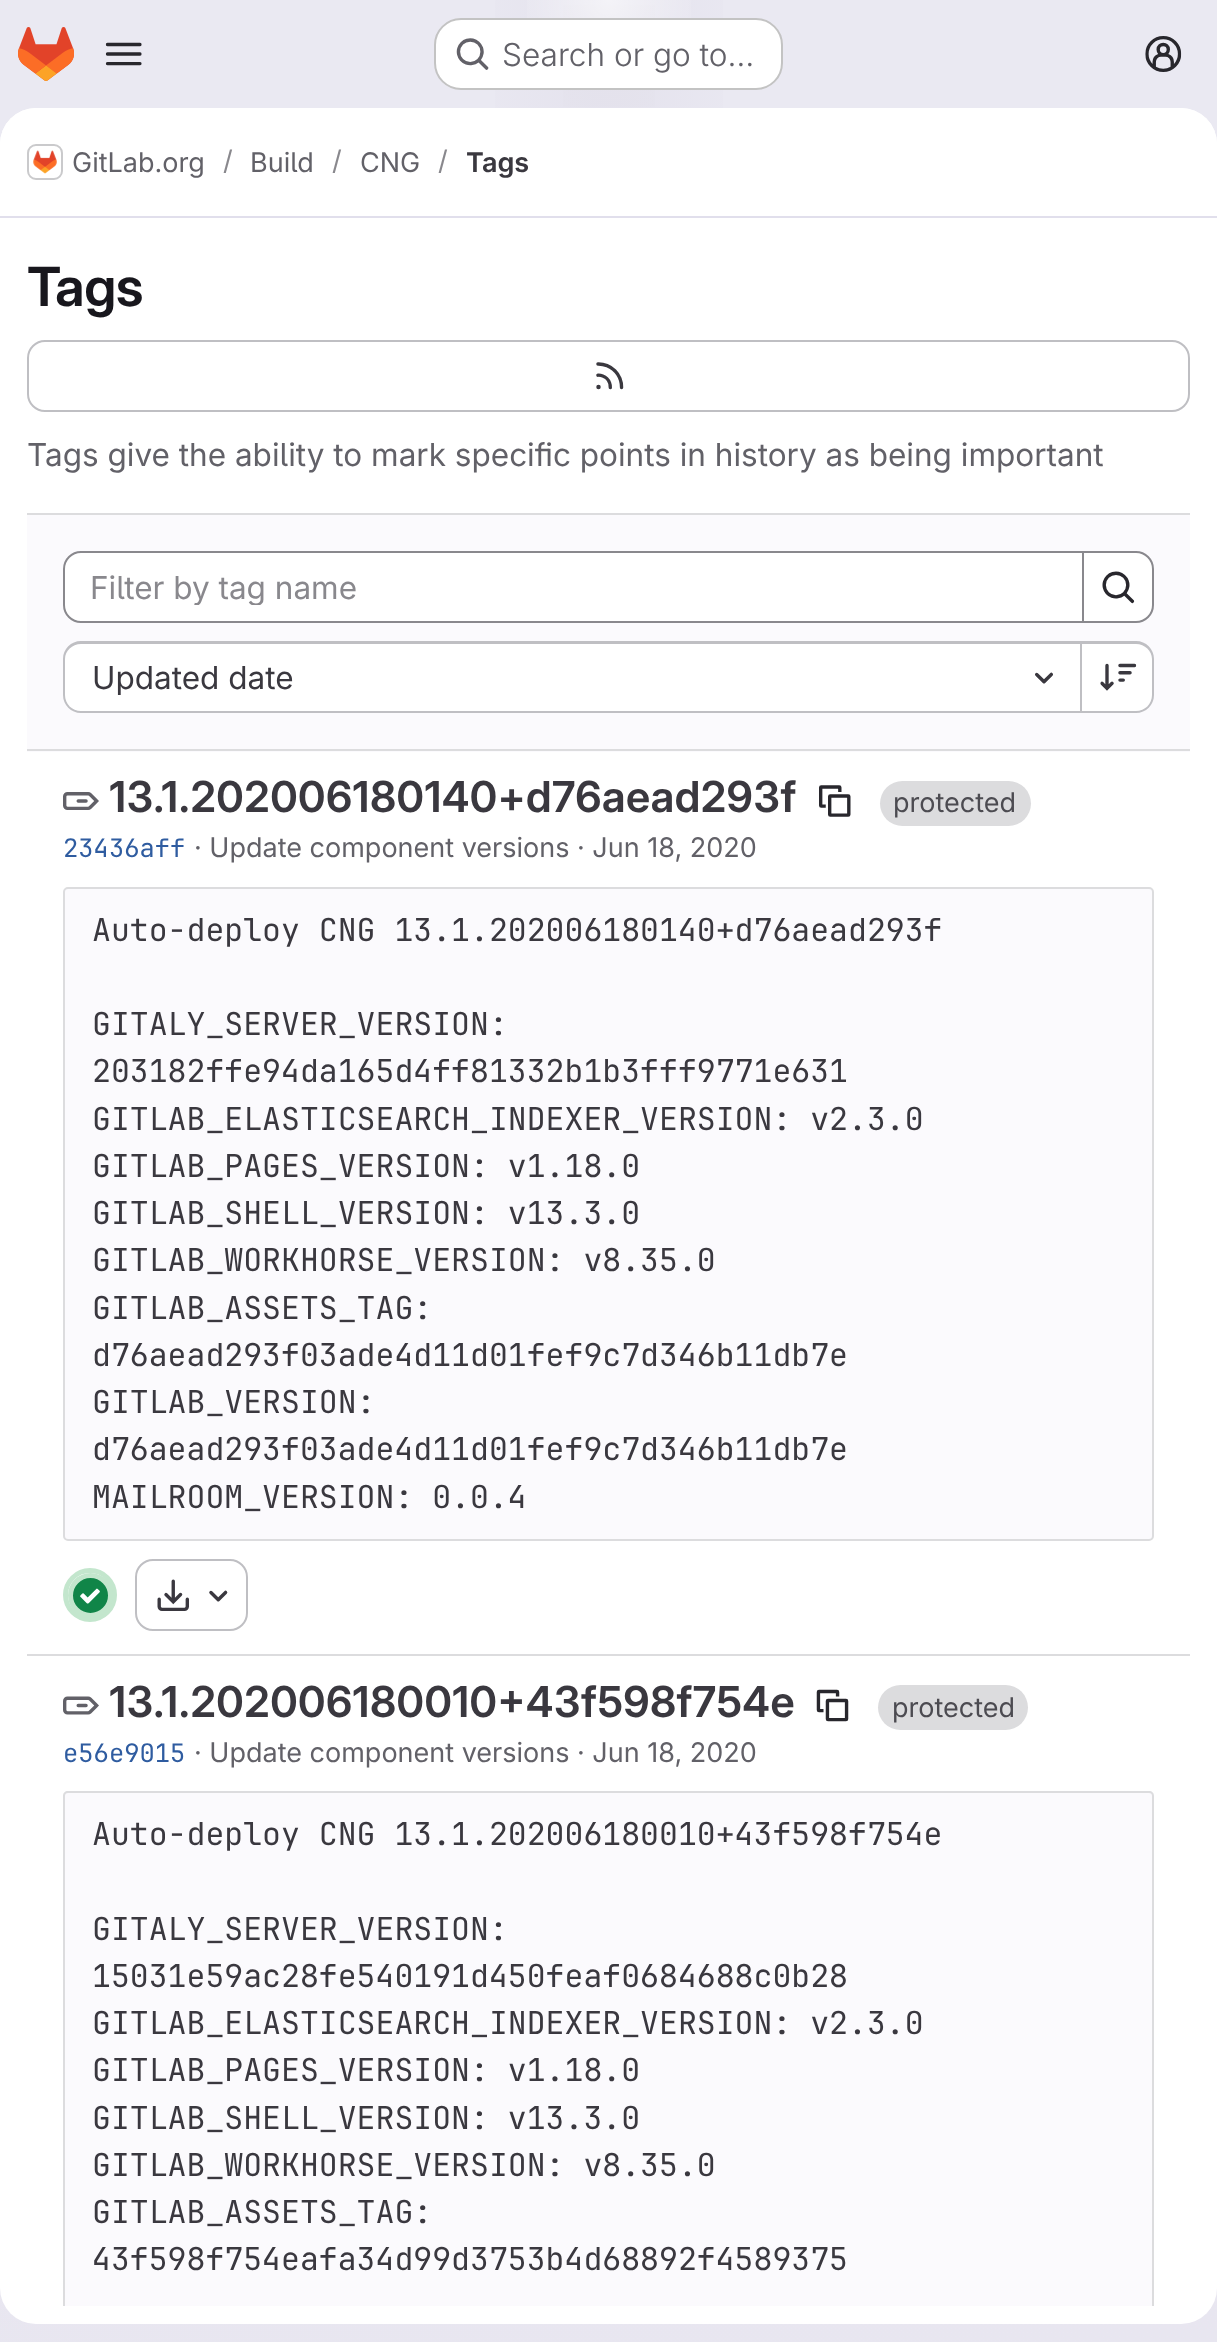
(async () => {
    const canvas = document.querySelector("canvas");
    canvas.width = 1217;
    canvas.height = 2342;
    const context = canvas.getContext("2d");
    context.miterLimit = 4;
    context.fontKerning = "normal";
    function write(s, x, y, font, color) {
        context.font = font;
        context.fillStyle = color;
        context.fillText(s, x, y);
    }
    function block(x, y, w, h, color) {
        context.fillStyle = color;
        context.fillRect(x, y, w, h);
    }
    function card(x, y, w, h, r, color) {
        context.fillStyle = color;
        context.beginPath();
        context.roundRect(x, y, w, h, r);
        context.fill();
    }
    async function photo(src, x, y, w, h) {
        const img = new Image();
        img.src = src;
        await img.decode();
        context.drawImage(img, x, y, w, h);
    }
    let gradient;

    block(0, 0, 1217, 2342, "rgb(255, 255, 255)");
    gradient = context.createLinearGradient(827, 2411, 390, -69);
    gradient.addColorStop(0, "rgb(232, 230, 240)");
    gradient.addColorStop(0.7, "rgb(234, 233, 242)");
    context.fillStyle = gradient;
    context.fillRect(0, 0, 1217, 2342);
    gradient = context.createRadialGradient(609, 0, 0, 609, 0, 609);
    gradient.addColorStop(0, "rgb(228, 226, 237)");
    gradient.addColorStop(0.26, "rgba(228, 226, 237, 0)");
    context.fillStyle = gradient;
    context.beginPath();
    context.rect(495, 0, 228, 108);
    context.save();
    context.clip();
    context.scale(1, 2342 / 609);
    context.fillRect(0, 0, 1217, 609);
    context.restore();
    gradient = context.createRadialGradient(609, 0, 0, 609, 0, 609);
    gradient.addColorStop(0, "rgb(228, 226, 236)");
    gradient.addColorStop(0.18, "rgba(228, 226, 236, 0)");
    context.fillStyle = gradient;
    context.beginPath();
    context.rect(563, 5, 92, 102);
    context.save();
    context.clip();
    context.scale(1, 2342 / 609);
    context.fillRect(0, 0, 1217, 609);
    context.restore();
    gradient = context.createRadialGradient(609, 0, 0, 609, 0, 2420);
    gradient.addColorStop(0, "rgba(255, 255, 255, 0.6)");
    gradient.addColorStop(0.04, "rgba(255, 255, 255, 0)");
    context.fillStyle = gradient;
    context.fillRect(527, 0, 164, 18);
    await photo("media/1.png", 18, 27, 56, 54);
    await photo("media/2.png", 105, 42, 37, 24);
    card(434, 18, 349, 72, 27, "rgb(255, 255, 255)");
    context.beginPath();
    context.roundRect(435, 19, 347, 70, 26);
    context.strokeStyle = "rgba(5, 5, 6, 0.24)";
    context.lineWidth = 2;
    context.stroke();
    await photo("media/3.png", 456, 38, 33, 32);
    write("Search or go to…", 502, 66, "300 31.5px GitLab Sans", "rgb(98, 97, 104)");
    await photo("media/4.png", 1145, 36, 37, 36);
    card(0, 108, 1217, 2216, 36, "rgb(255, 255, 255)");
    context.beginPath();
    context.roundRect(0, 108, 1217, 110, [36, 36, 0, 0]);
    context.fill();
    block(0, 216, 1217, 2, "rgb(225, 223, 236)");
    context.beginPath();
    context.roundRect(28, 145, 34, 34, 8);
    context.strokeStyle = "rgb(220, 220, 222)";
    context.stroke();
    await photo("media/5.png", 30, 148, 30, 26);
    context.beginPath();
    context.roundRect(28, 145, 34, 34, 8);
    context.strokeStyle = "rgba(5, 5, 6, 0.08)";
    context.stroke();
    write("GitLab.org", 72, 172, "27px GitLab Sans", "rgb(98, 97, 104)");
    write("/", 223, 170, "27px GitLab Sans", "rgb(137, 136, 141)");
    write("Build", 250, 172, "27px GitLab Sans", "rgb(98, 97, 104)");
    write("/", 332, 170, "27px GitLab Sans", "rgb(137, 136, 141)");
    write("CNG", 360, 172, "27px GitLab Sans", "rgb(98, 97, 104)");
    write("/", 438, 170, "27px GitLab Sans", "rgb(137, 136, 141)");
    write("Tags", 466, 172, "600 27px 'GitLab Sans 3'", "rgb(58, 56, 63)");
    context.letterSpacing = "-0.5px";
    write("Tags", 27, 306, "600 54px GitLab Sans", "rgb(24, 23, 29)");
    context.beginPath();
    context.roundRect(28, 341, 1161, 70, 17);
    context.strokeStyle = "rgb(191, 191, 195)";
    context.stroke();
    await photo("media/6.png", 596, 362, 28, 28);
    context.letterSpacing = "0px";
    write("Tags give the ability to mark specific points in history as being important", 27, 466, "31.5px GitLab Sans", "rgb(98, 97, 104)");
    block(27, 515, 1163, 237, "rgb(251, 250, 253)");
    block(27, 513, 1163, 2, "rgb(220, 220, 222)");
    block(27, 749, 1163, 2, "rgb(220, 220, 222)");
    context.fillStyle = "rgb(255, 255, 255)";
    context.beginPath();
    context.roundRect(64, 552, 1020, 70, [17, 0, 0, 17]);
    context.fill();
    context.strokeStyle = "rgb(137, 136, 141)";
    context.stroke();
    context.save();
    context.beginPath();
    context.rect(90, 567, 923, 38);
    context.clip();
    write("Filter by tag name", 90, 599, "31.5px GitLab Sans", "rgb(137, 136, 141)");
    context.restore();
    context.beginPath();
    context.roundRect(1083, 552, 70, 70, [0, 17, 17, 0]);
    context.fill();
    context.stroke();
    await photo("media/7.png", 1102, 571, 33, 33);
    context.beginPath();
    context.roundRect(65, 644, 1015, 67, [16, 0, 0, 16]);
    context.fill();
    context.fillStyle = "rgb(191, 191, 195)";
    context.beginPath();
    context.moveTo(81, 641);
    context.lineTo(1080, 641);
    context.lineTo(1080, 713);
    context.lineTo(81, 713);
    context.bezierCurveTo(71, 713, 63, 705, 63, 695);
    context.lineTo(63, 659);
    context.bezierCurveTo(63, 649, 71, 641, 81, 641);
    context.closePath();
    context.moveTo(81, 644);
    context.lineTo(1080, 644);
    context.lineTo(1080, 711);
    context.lineTo(81, 711);
    context.bezierCurveTo(72, 711, 65, 704, 65, 695);
    context.lineTo(65, 659);
    context.bezierCurveTo(65, 651, 72, 644, 81, 644);
    context.closePath();
    context.fill("evenodd");
    context.save();
    context.beginPath();
    context.rect(92, 659, 203, 36);
    context.clip();
    write("Updated date", 92, 689, "31.5px GitLab Sans", "rgb(58, 56, 63)");
    context.restore();
    await photo("media/8.png", 1035, 672, 18, 12);
    context.fillStyle = "rgb(255, 255, 255)";
    context.beginPath();
    context.roundRect(1082, 644, 70, 67, [0, 16, 16, 0]);
    context.fill();
    context.fillStyle = "rgb(191, 191, 195)";
    context.beginPath();
    context.moveTo(1082, 641);
    context.lineTo(1136, 641);
    context.bezierCurveTo(1146, 641, 1154, 649, 1154, 659);
    context.lineTo(1154, 695);
    context.bezierCurveTo(1154, 705, 1146, 713, 1136, 713);
    context.lineTo(1082, 713);
    context.closePath();
    context.moveTo(1082, 644);
    context.lineTo(1136, 644);
    context.bezierCurveTo(1145, 644, 1152, 651, 1152, 659);
    context.lineTo(1152, 695);
    context.bezierCurveTo(1152, 704, 1145, 711, 1136, 711);
    context.lineTo(1082, 711);
    context.closePath();
    context.fill("evenodd");
    block(1080, 641, 2, 72, "rgb(191, 191, 195)");
    await photo("media/9.png", 1100, 663, 37, 28);
    block(27, 1654, 1163, 2, "rgb(220, 220, 222)");
    await photo("media/10.png", 63, 792, 36, 18);
    write("13.1.202006180140+d76aead293f", 109, 812, "600 42.75px 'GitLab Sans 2'", "rgb(58, 56, 63)");
    await photo("media/11.png", 819, 785, 32, 32);
    card(880, 781, 151, 45, 22.5, "rgb(220, 220, 222)");
    write("protected", 893, 812, "27px GitLab Sans", "rgb(76, 75, 81)");
    write("23436aff", 63, 857, "25.5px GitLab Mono", "rgb(47, 92, 160)");
    write("· Update component versions · Jun 18, 2020", 194, 857, "27px GitLab Sans", "rgb(98, 97, 104)");
    context.fillStyle = "rgb(251, 250, 253)";
    context.beginPath();
    context.roundRect(64, 888, 1089, 652, 4);
    context.fill();
    context.strokeStyle = "rgb(220, 220, 222)";
    context.stroke();
    write("Auto-deploy CNG 13.1.202006180140+d76aead293f", 92, 941, "31.5px GitLab Mono", "rgb(58, 56, 63)");
    write("GITALY_SERVER_VERSION:", 92, 1035, "31.5px GitLab Mono", "rgb(58, 56, 63)");
    write("203182ffe94da165d4ff81332b1b3fff9771e631", 92, 1082, "31.5px GitLab Mono", "rgb(58, 56, 63)");
    write("GITLAB_ELASTICSEARCH_INDEXER_VERSION: v2.3.0", 92, 1130, "31.5px GitLab Mono", "rgb(58, 56, 63)");
    write("GITLAB_PAGES_VERSION: v1.18.0", 92, 1177, "31.5px GitLab Mono", "rgb(58, 56, 63)");
    write("GITLAB_SHELL_VERSION: v13.3.0", 92, 1224, "31.5px GitLab Mono", "rgb(58, 56, 63)");
    write("GITLAB_WORKHORSE_VERSION: v8.35.0", 92, 1271, "31.5px GitLab Mono", "rgb(58, 56, 63)");
    write("GITLAB_ASSETS_TAG:", 92, 1319, "31.5px GitLab Mono", "rgb(58, 56, 63)");
    write("d76aead293f03ade4d11d01fef9c7d346b11db7e", 92, 1366, "31.5px GitLab Mono", "rgb(58, 56, 63)");
    write("GITLAB_VERSION:", 92, 1413, "31.5px GitLab Mono", "rgb(58, 56, 63)");
    write("d76aead293f03ade4d11d01fef9c7d346b11db7e", 92, 1460, "31.5px GitLab Mono", "rgb(58, 56, 63)");
    write("MAILROOM_VERSION: 0.0.4", 92, 1508, "31.5px GitLab Mono", "rgb(58, 56, 63)");
    context.beginPath();
    context.arc(90, 1595, 24.5, 0, Math.PI * 2);
    context.strokeStyle = "rgb(195, 230, 205)";
    context.lineWidth = 5;
    context.stroke();
    context.fillStyle = "rgb(16, 133, 72)";
    context.beginPath();
    context.arc(90.5, 1595.5, 20, 0, Math.PI * 2);
    context.fill();
    context.stroke();
    await photo("media/12.png", 80, 1588, 20, 16);
    context.beginPath();
    context.roundRect(136, 1560, 111, 70, 17);
    context.strokeStyle = "rgb(191, 191, 195)";
    context.lineWidth = 2;
    context.stroke();
    await photo("media/13.png", 157, 1579, 32, 32);
    await photo("media/14.png", 209, 1590, 19, 12);
    await photo("media/15.png", 63, 1696, 36, 19);
    write("13.1.202006180010+43f598f754e", 109, 1717, "600 42.75px 'GitLab Sans 2'", "rgb(58, 56, 63)");
    await photo("media/16.png", 816, 1689, 33, 33);
    card(878, 1685, 150, 45, 22.5, "rgb(220, 220, 222)");
    write("protected", 892, 1717, "27px GitLab Sans", "rgb(76, 75, 81)");
    write("e56e9015", 63, 1762, "25.5px GitLab Mono", "rgb(47, 92, 160)");
    write("· Update component versions · Jun 18, 2020", 194, 1762, "27px GitLab Sans", "rgb(98, 97, 104)");
    context.fillStyle = "rgb(251, 250, 253)";
    context.beginPath();
    context.roundRect(63, 1791, 1091, 515, [5, 5, 0, 0]);
    context.fill();
    context.save();
    context.beginPath();
    context.rect(0, 218, 1217, 2088);
    context.clip();
    context.fillStyle = "rgb(220, 220, 222)";
    context.beginPath();
    context.moveTo(68, 1791);
    context.bezierCurveTo(65, 1791, 63, 1793, 63, 1796);
    context.lineTo(63, 2324);
    context.lineTo(65, 2324);
    context.lineTo(65, 1796);
    context.bezierCurveTo(65, 1794, 66, 1793, 68, 1793);
    context.lineTo(1149, 1793);
    context.bezierCurveTo(1151, 1793, 1152, 1794, 1152, 1796);
    context.lineTo(1152, 2324);
    context.lineTo(1154, 2324);
    context.lineTo(1154, 1796);
    context.bezierCurveTo(1154, 1793, 1152, 1791, 1149, 1791);
    context.closePath();
    context.fill();
    context.restore();
    write("Auto-deploy CNG 13.1.202006180010+43f598f754e", 92, 1845, "31.5px GitLab Mono", "rgb(58, 56, 63)");
    write("GITALY_SERVER_VERSION:", 92, 1940, "31.5px GitLab Mono", "rgb(58, 56, 63)");
    write("15031e59ac28fe540191d450feaf0684688c0b28", 92, 1987, "31.5px GitLab Mono", "rgb(58, 56, 63)");
    write("GITLAB_ELASTICSEARCH_INDEXER_VERSION: v2.3.0", 92, 2034, "31.5px GitLab Mono", "rgb(58, 56, 63)");
    write("GITLAB_PAGES_VERSION: v1.18.0", 92, 2081, "31.5px GitLab Mono", "rgb(58, 56, 63)");
    write("GITLAB_SHELL_VERSION: v13.3.0", 92, 2129, "31.5px GitLab Mono", "rgb(58, 56, 63)");
    write("GITLAB_WORKHORSE_VERSION: v8.35.0", 92, 2176, "31.5px GitLab Mono", "rgb(58, 56, 63)");
    write("GITLAB_ASSETS_TAG:", 92, 2223, "31.5px GitLab Mono", "rgb(58, 56, 63)");
    write("43f598f754eafa34d99d3753b4d68892f4589375", 92, 2270, "31.5px GitLab Mono", "rgb(58, 56, 63)");
})();
